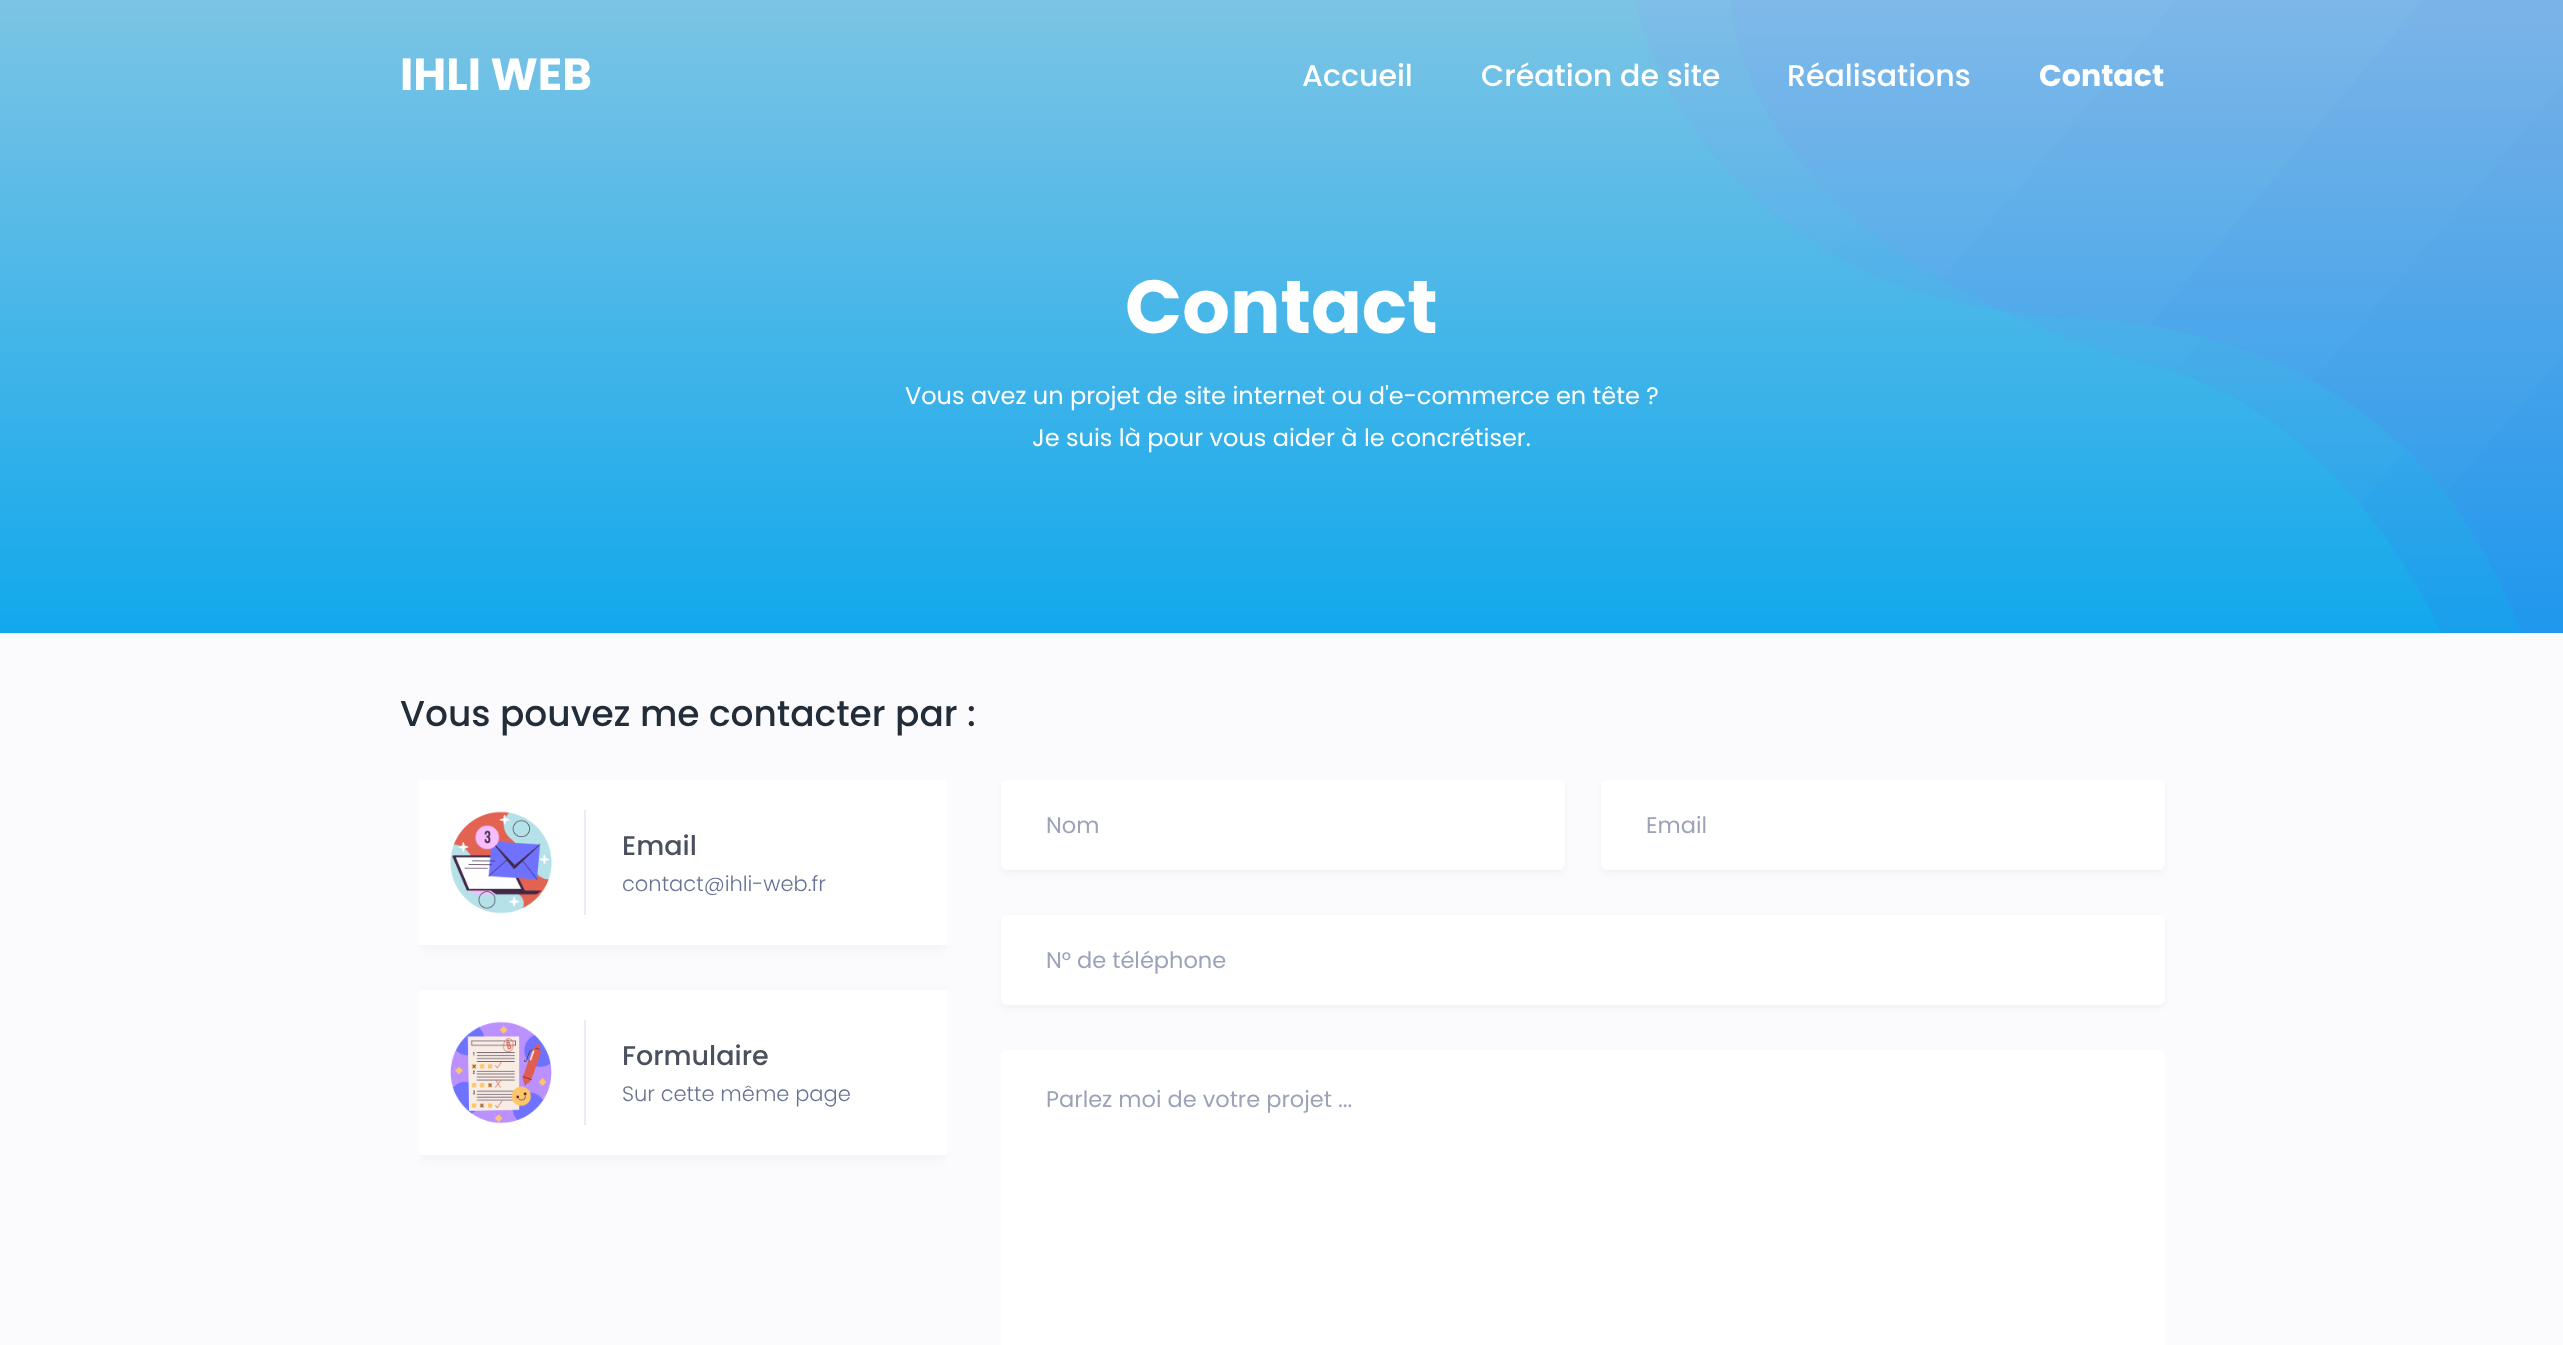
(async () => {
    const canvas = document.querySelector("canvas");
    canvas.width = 2563;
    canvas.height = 1345;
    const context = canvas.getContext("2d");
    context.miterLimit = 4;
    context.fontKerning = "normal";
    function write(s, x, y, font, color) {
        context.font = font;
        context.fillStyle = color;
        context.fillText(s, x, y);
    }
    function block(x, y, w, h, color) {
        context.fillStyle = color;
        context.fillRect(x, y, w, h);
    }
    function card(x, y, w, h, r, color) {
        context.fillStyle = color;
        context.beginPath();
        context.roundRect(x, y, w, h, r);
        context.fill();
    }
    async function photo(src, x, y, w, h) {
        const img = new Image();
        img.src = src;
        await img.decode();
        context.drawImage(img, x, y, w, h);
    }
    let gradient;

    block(0, 0, 2563, 1345, "rgb(251, 251, 253)");
    gradient = context.createLinearGradient(1282, 0, 1282, 633);
    gradient.addColorStop(0, "rgb(124, 196, 229)");
    gradient.addColorStop(1, "rgb(18, 168, 236)");
    context.fillStyle = gradient;
    context.fillRect(0, 0, 2563, 633);
    write("IHLI WEB", 400, 90, "bold 45px Poppins", "rgb(255, 255, 255)");
    write("Accueil", 1302, 86, "500 30px Poppins", "rgb(255, 255, 255)");
    await photo("media/1.png", 1635, 0, 928, 633);
    write("Création de site", 1481, 86, "500 30px Poppins", "rgb(255, 255, 255)");
    write("Réalisations", 1787, 86, "500 30px Poppins", "rgb(255, 255, 255)");
    write("Contact", 2039, 86, "bold 30px Poppins", "rgb(255, 255, 255)");
    write("Contact", 1125, 333, "bold 75px Poppins", "rgb(255, 255, 255)");
    write("Vous avez un projet de site internet ou d'e-commerce en tête ?", 905, 404, "24px Poppins", "rgb(255, 255, 255)");
    write("Je suis là pour vous aider à le concrétiser.", 1032, 446, "24px Poppins", "rgb(255, 255, 255)");
    write("Vous pouvez me contacter par :", 400, 726, "500 36px Poppins", "rgb(34, 45, 57)");
    context.save();
    context.beginPath();
    context.rect(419, 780, 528, 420);
    context.clip();
    context.fillStyle = "rgba(12, 0, 46, 0.04)";
    context.filter = "blur(6px)";
    context.beginPath();
    context.rect(419, 783, 528, 165);
    context.fill();
    context.filter = "none";
    context.restore();
    block(419, 780, 528, 165, "rgb(255, 255, 255)");
    await photo("media/2.png", 450, 811, 102, 103);
    block(584, 810, 2, 105, "rgb(238, 235, 247)");
    write("Email", 622, 855, "500 27px Poppins", "rgb(75, 80, 94)");
    write("contact@ihli-web.fr", 622, 891, "300 21px Poppins", "rgb(103, 114, 148)");
    context.save();
    context.beginPath();
    context.rect(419, 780, 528, 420);
    context.clip();
    context.fillStyle = "rgba(12, 0, 46, 0.04)";
    context.filter = "blur(6px)";
    context.beginPath();
    context.rect(419, 993, 528, 165);
    context.fill();
    context.filter = "none";
    context.restore();
    block(419, 990, 528, 165, "rgb(255, 255, 255)");
    await photo("media/3.png", 450, 1021, 102, 103);
    block(584, 1020, 2, 105, "rgb(238, 235, 247)");
    write("Formulaire", 622, 1065, "500 27px Poppins", "rgb(75, 80, 94)");
    write("Sur cette même page", 622, 1101, "300 21px Poppins", "rgb(103, 114, 148)");
    context.fillStyle = "rgba(12, 0, 46, 0.04)";
    context.filter = "blur(3px)";
    context.beginPath();
    context.roundRect(1001, 783, 564, 90, 6);
    context.fill();
    context.filter = "none";
    context.fillStyle = "rgb(255, 255, 255)";
    context.beginPath();
    context.roundRect(1002, 781, 562, 88, 5);
    context.fill();
    context.strokeStyle = "rgb(255, 255, 255)";
    context.lineWidth = 2;
    context.stroke();
    write("Nom", 1046, 833, "22.5px Poppins", "rgb(156, 163, 185)");
    context.fillStyle = "rgba(12, 0, 46, 0.04)";
    context.filter = "blur(3px)";
    context.beginPath();
    context.roundRect(1601, 783, 564, 90, 6);
    context.fill();
    context.filter = "none";
    context.fillStyle = "rgb(255, 255, 255)";
    context.beginPath();
    context.roundRect(1602, 781, 562, 88, 5);
    context.fill();
    context.stroke();
    write("Email", 1646, 833, "22.5px Poppins", "rgb(156, 163, 185)");
    context.fillStyle = "rgba(12, 0, 46, 0.04)";
    context.filter = "blur(3px)";
    context.beginPath();
    context.roundRect(1001, 918, 1164, 90, 6);
    context.fill();
    context.filter = "none";
    context.fillStyle = "rgb(255, 255, 255)";
    context.beginPath();
    context.roundRect(1002, 916, 1162, 88, 5);
    context.fill();
    context.stroke();
    write("N° de téléphone", 1046, 968, "22.5px Poppins", "rgb(156, 163, 185)");
    card(1001, 1050, 1164, 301, 6, "rgb(255, 255, 255)");
    write("Parlez moi de votre projet ...", 1046, 1107, "22.5px Poppins", "rgb(156, 163, 185)");
})();
